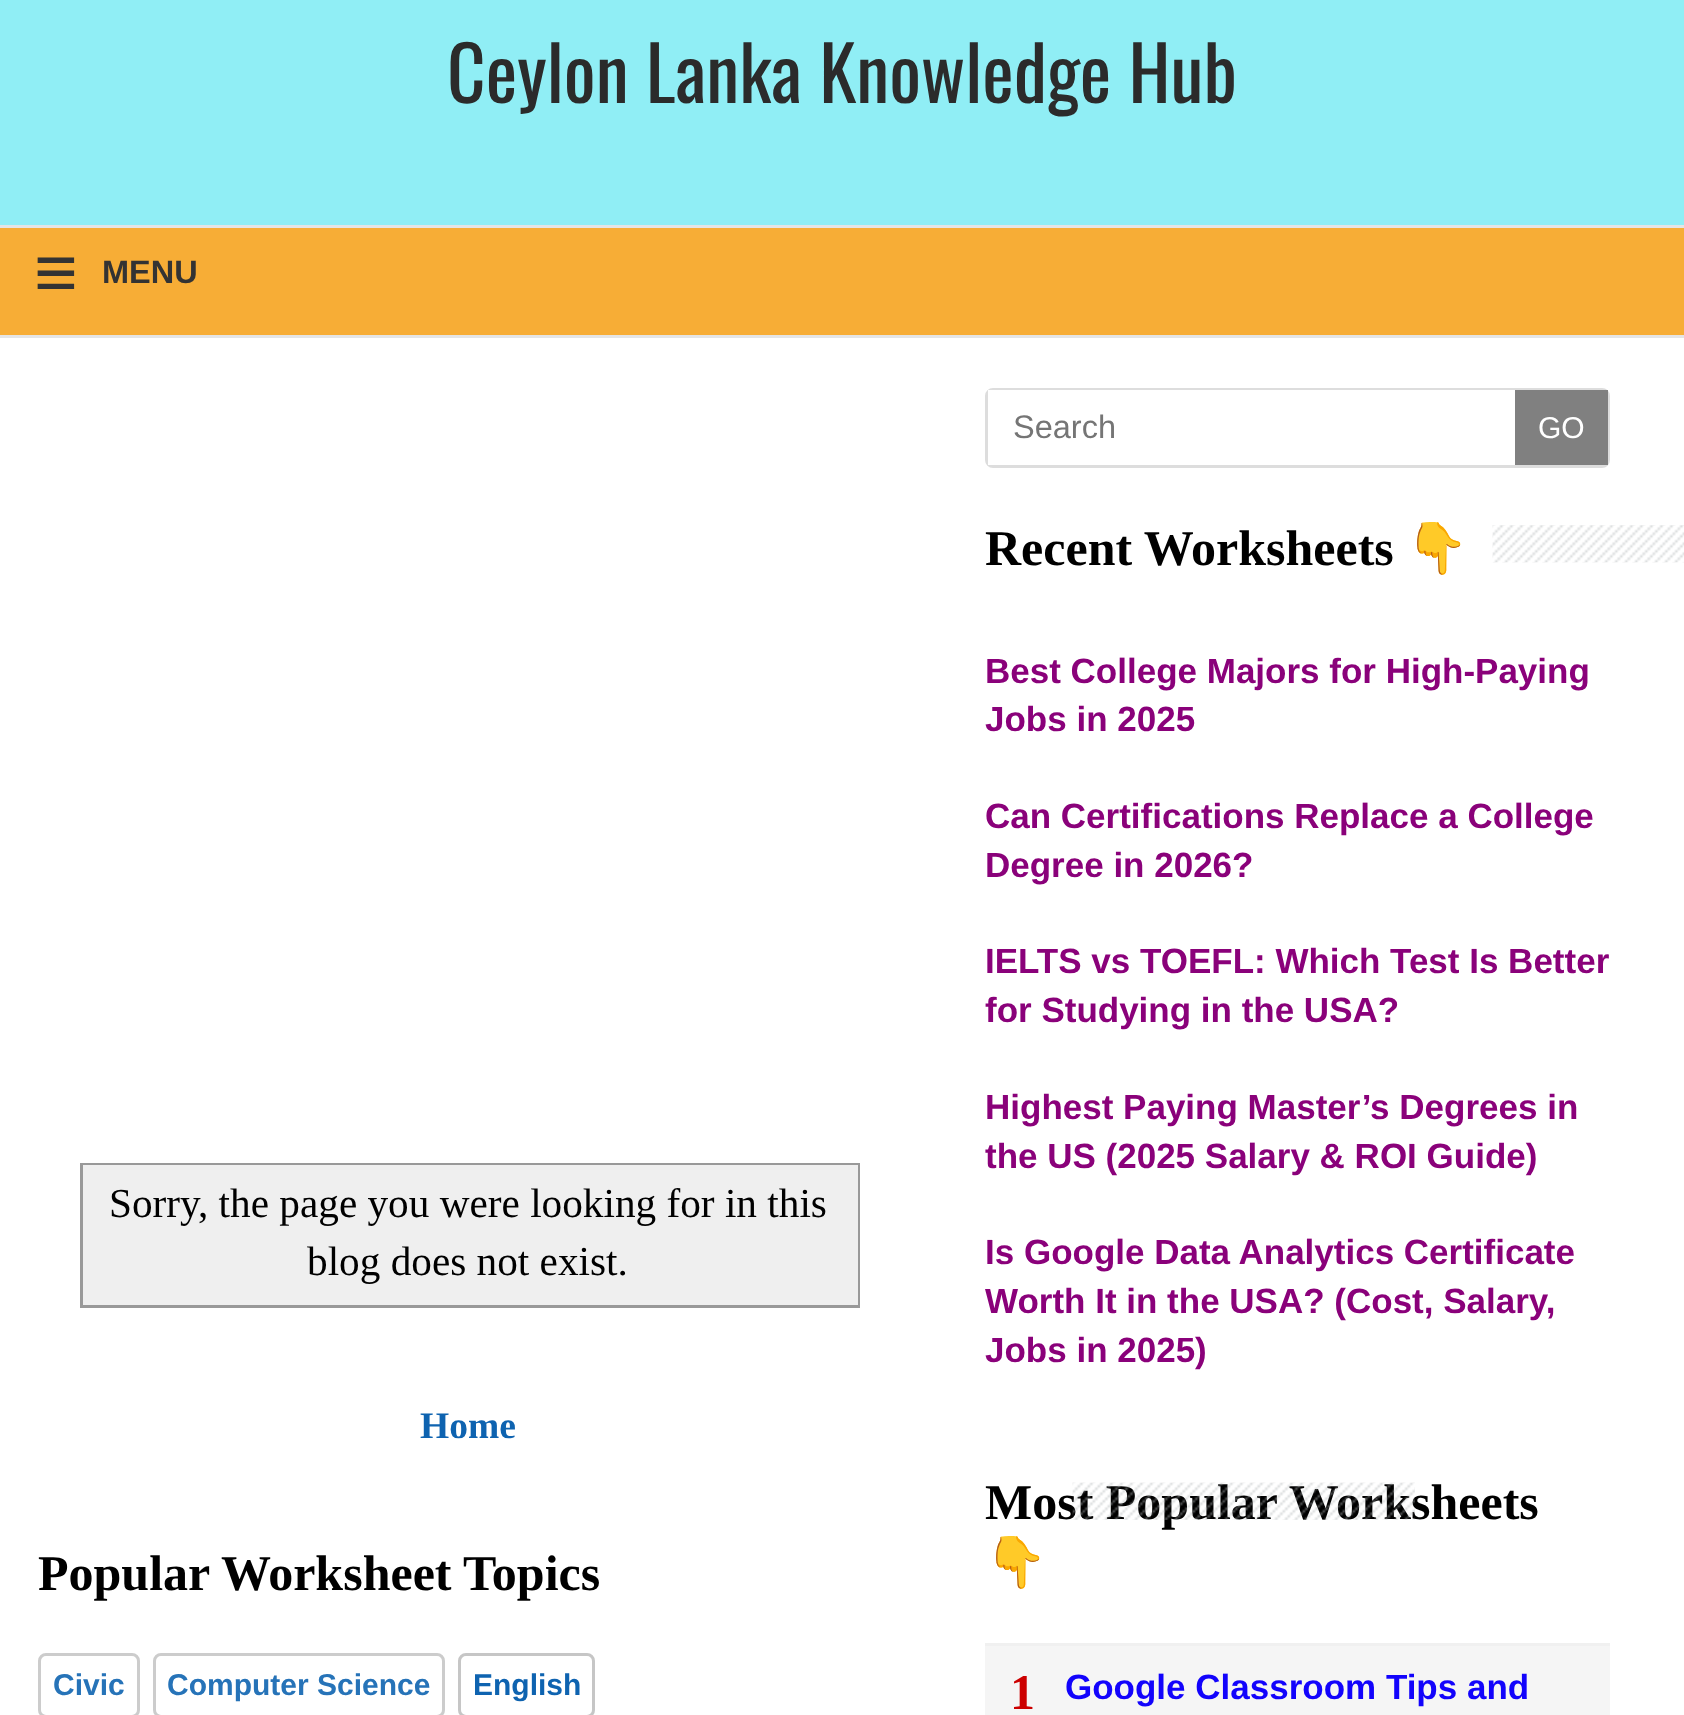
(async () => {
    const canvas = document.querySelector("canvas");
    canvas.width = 1684;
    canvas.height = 1715;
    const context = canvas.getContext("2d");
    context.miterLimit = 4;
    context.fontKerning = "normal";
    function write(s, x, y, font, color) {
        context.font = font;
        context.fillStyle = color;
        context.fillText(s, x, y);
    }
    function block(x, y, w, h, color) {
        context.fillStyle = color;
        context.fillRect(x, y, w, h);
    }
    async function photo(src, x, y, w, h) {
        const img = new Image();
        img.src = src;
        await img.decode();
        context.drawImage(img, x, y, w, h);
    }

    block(0, 0, 1684, 1715, "rgb(255, 255, 255)");
    block(0, 0, 1684, 225, "rgb(144, 238, 245)");
    write("Ceylon Lanka Knowledge Hub", 447, 103, "75px Oswald", "rgb(43, 43, 43)");
    block(0, 228, 1684, 107, "rgb(247, 173, 54)");
    block(0, 225, 1684, 3, "rgb(229, 229, 229)");
    block(0, 335, 1684, 3, "rgb(229, 229, 229)");
    write("≡", 34, 298, "bold 75px Liberation Sans", "rgb(51, 51, 51)");
    write("MENU", 102, 283, "bold 32.5px Liberation Sans", "rgb(51, 51, 51)");
    context.strokeStyle = "rgb(153, 153, 153)";
    context.lineWidth = 3;
    context.strokeRect(81.5, 1164.5, 777, 142);
    block(83, 1165, 775, 140, "rgb(239, 239, 239)");
    write("Sorry, the page you were looking for in this", 109, 1217, "41.25px Liberation Serif", "rgb(0, 0, 0)");
    write("blog does not exist.", 307, 1275, "41.25px Liberation Serif", "rgb(0, 0, 0)");
    write("Home", 420, 1438, "bold 37.5px Liberation Serif", "rgb(14, 99, 176)");
    write("Popular Worksheet Topics", 38, 1590, "bold 50px Liberation Serif", "rgb(0, 0, 0)");
    context.beginPath();
    context.roundRect(39.5, 1654.5, 99, 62, 6.5);
    context.strokeStyle = "rgb(204, 204, 204)";
    context.stroke();
    write("Civic", 53, 1695, "bold 30px Liberation Sans", "rgb(38, 115, 184)");
    context.beginPath();
    context.roundRect(154.5, 1654.5, 289, 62, 6.5);
    context.stroke();
    write("Computer Science", 167, 1695, "bold 30px Liberation Sans", "rgb(38, 115, 184)");
    context.beginPath();
    context.roundRect(459.5, 1654.5, 134, 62, 6.5);
    context.strokeStyle = "rgb(198, 198, 198)";
    context.stroke();
    write("English", 473, 1695, "bold 30px Liberation Sans", "rgb(14, 99, 176)");
    context.beginPath();
    context.roundRect(986.5, 389.5, 622, 77, 6.5);
    context.strokeStyle = "rgb(221, 221, 221)";
    context.stroke();
    block(988, 390, 527, 75, "rgb(255, 255, 255)");
    write("Search", 1013, 438, "32.5px Liberation Sans", "rgb(117, 117, 117)");
    block(1515, 390, 93, 75, "rgb(128, 128, 128)");
    write("GO", 1538, 438, "30px Liberation Sans", "rgb(255, 255, 255)");
    write("Recent Worksheets", 985, 565, "bold 50px Liberation Serif", "rgb(0, 0, 0)");
    write("👇", 1406, 565, "bold 50px Noto Color Emoji", "rgb(0, 0, 0)");
    await photo("media/1.png", 1492, 525, 192, 38);
    write("Best College Majors for High-Paying", 985, 683, "bold 35px Liberation Sans", "rgb(138, 1, 122)");
    write("Jobs in 2025", 985, 731, "bold 35px Liberation Sans", "rgb(138, 1, 122)");
    write("Can Certifications Replace a College", 985, 828, "bold 35px Liberation Sans", "rgb(138, 1, 122)");
    write("Degree in 2026?", 985, 877, "bold 35px Liberation Sans", "rgb(138, 1, 122)");
    write("IELTS vs TOEFL: Which Test Is Better", 985, 973, "bold 35px Liberation Sans", "rgb(138, 1, 122)");
    write("for Studying in the USA?", 985, 1022, "bold 35px Liberation Sans", "rgb(138, 1, 122)");
    write("Highest Paying Master’s Degrees in", 985, 1119, "bold 35px Liberation Sans", "rgb(138, 1, 122)");
    write("the US (2025 Salary & ROI Guide)", 985, 1168, "bold 35px Liberation Sans", "rgb(138, 1, 122)");
    write("Is Google Data Analytics Certificate", 985, 1264, "bold 35px Liberation Sans", "rgb(138, 1, 122)");
    write("Worth It in the USA? (Cost, Salary,", 985, 1313, "bold 35px Liberation Sans", "rgb(138, 1, 122)");
    write("Jobs in 2025)", 985, 1362, "bold 35px Liberation Sans", "rgb(138, 1, 122)");
    write("Most Popular Worksheets", 985, 1519, "bold 50px Liberation Serif", "rgb(0, 0, 0)");
    await photo("media/2.png", 1072, 1482, 343, 38);
    write("👇", 985, 1579, "bold 50px Noto Color Emoji", "rgb(0, 0, 0)");
    block(985, 1646, 625, 69, "rgb(245, 245, 245)");
    block(985, 1643, 625, 3, "rgb(240, 240, 240)");
    write("1", 1010, 1709, "bold 50px Liberation Serif", "rgb(204, 0, 0)");
    write("Google Classroom Tips and", 1065, 1699, "bold 35px Liberation Sans", "rgb(18, 3, 252)");
})();
